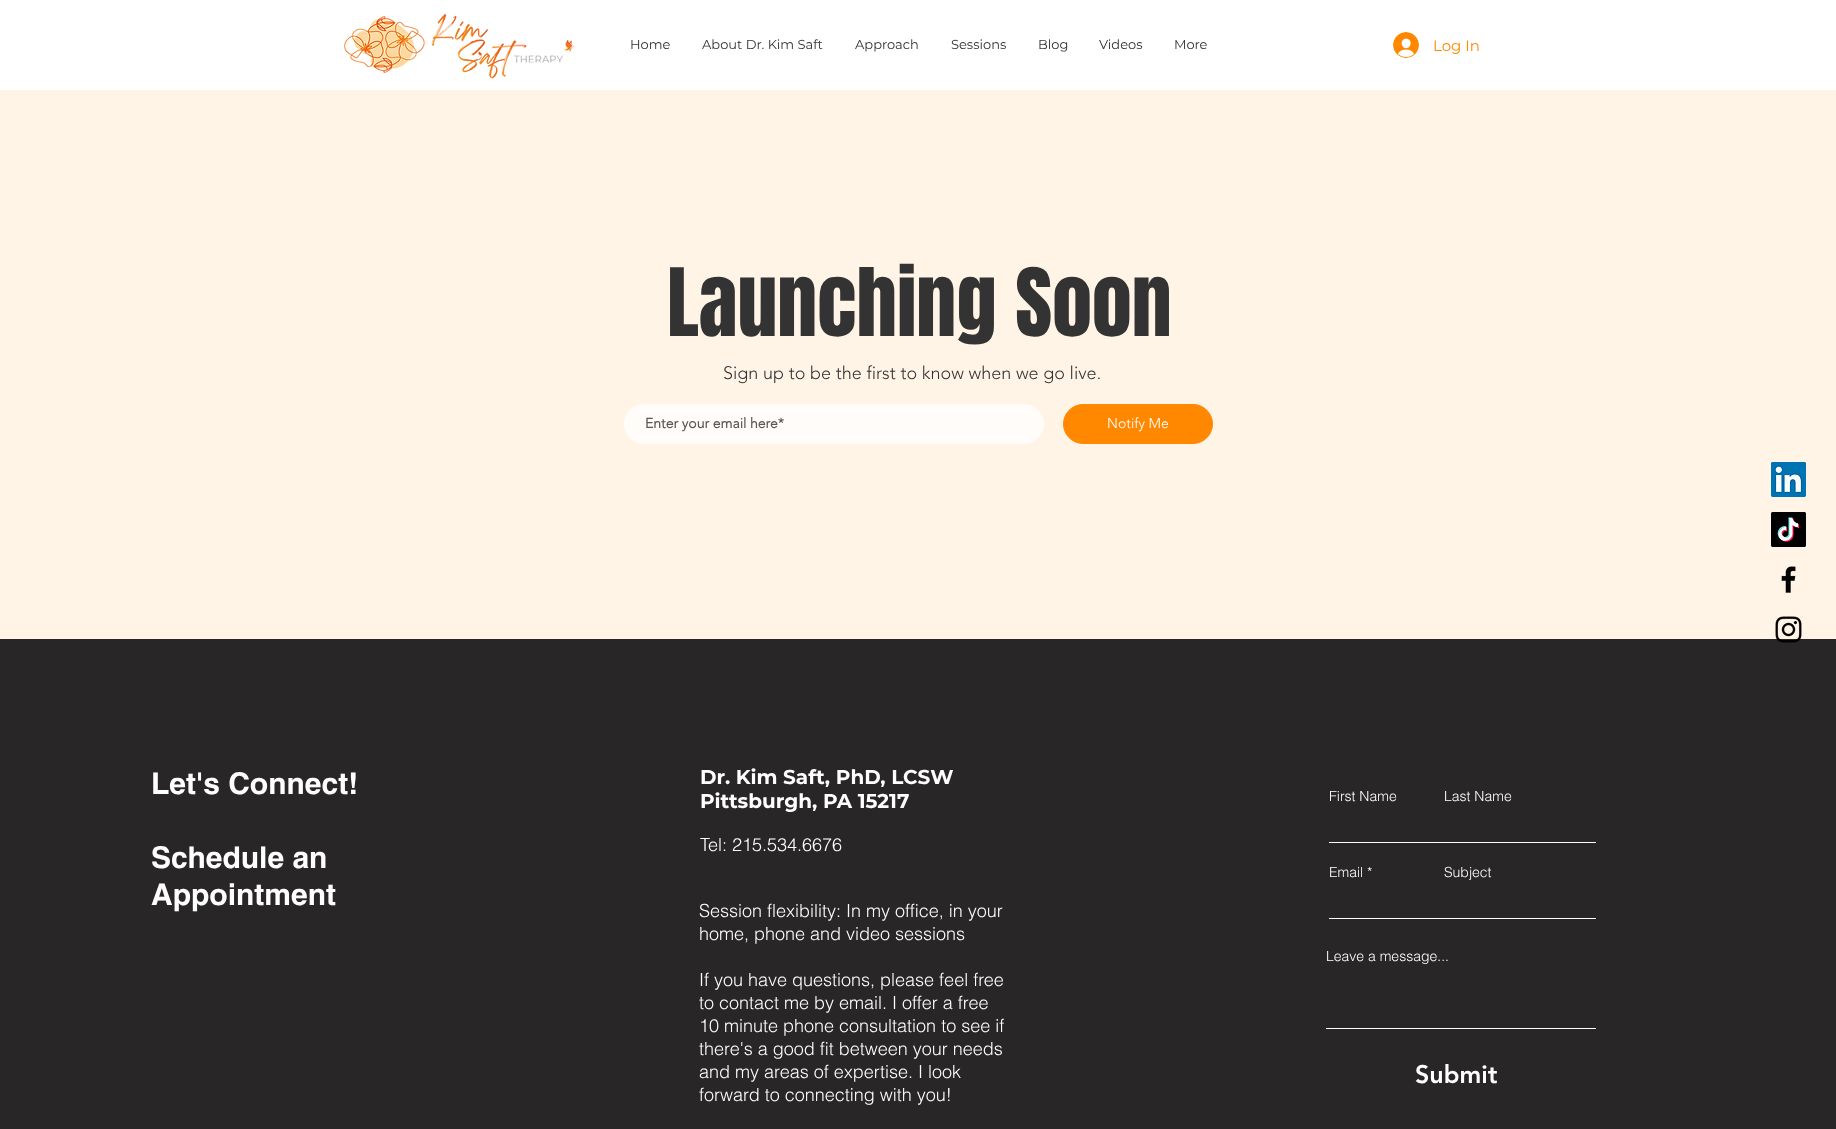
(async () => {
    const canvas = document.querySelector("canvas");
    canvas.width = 1836;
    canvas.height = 1129;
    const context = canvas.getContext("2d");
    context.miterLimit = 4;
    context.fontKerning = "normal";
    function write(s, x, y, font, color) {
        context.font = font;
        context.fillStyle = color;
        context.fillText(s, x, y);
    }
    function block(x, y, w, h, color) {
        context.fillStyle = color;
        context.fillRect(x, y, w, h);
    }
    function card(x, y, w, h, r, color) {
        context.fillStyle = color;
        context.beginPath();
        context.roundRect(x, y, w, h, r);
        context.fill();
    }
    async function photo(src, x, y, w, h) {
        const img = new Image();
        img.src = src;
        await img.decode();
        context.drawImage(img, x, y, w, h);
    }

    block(0, 0, 1836, 1129, "rgb(255, 255, 255)");
    await photo("media/1.png", 343, 16, 82, 57);
    await photo("media/2.png", 431, 13, 144, 66);
    write("Home", 630, 49, "13px Montserrat", "rgb(51, 51, 51)");
    write("About Dr. Kim Saft", 702, 49, "13px Montserrat", "rgb(51, 51, 51)");
    write("Approach", 855, 49, "13px Montserrat", "rgb(51, 51, 51)");
    write("Sessions", 951, 49, "13px Montserrat", "rgb(51, 51, 51)");
    write("Blog", 1038, 49, "13px Montserrat", "rgb(51, 51, 51)");
    write("Videos", 1099, 49, "13px Montserrat", "rgb(51, 51, 51)");
    write("More", 1174, 49, "13px Montserrat", "rgb(51, 51, 51)");
    await photo("media/3.png", 1393, 32, 26, 26);
    write("Log In", 1433, 51, "15px Montserrat", "rgb(255, 136, 0)");
    block(0, 90, 1836, 549, "rgb(255, 244, 230)");
    write("Launching Soon", 667, 336, "80px Anton", "rgb(51, 51, 51)");
    write("Sign up to be the first to know when we go live.", 723, 379, "300 18px 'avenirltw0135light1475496'", "rgb(51, 51, 51)");
    card(624, 404, 420, 40, 20, "rgb(255, 252, 249)");
    write("Enter your email here*", 645, 428, "bold 14px 'avenirltw0135light1475496'", "rgb(89, 89, 89)");
    context.fillStyle = "rgb(255, 136, 0)";
    context.beginPath();
    context.roundRect(1063.5, 404.5, 149, 39, 19.5);
    context.fill();
    context.strokeStyle = "rgb(255, 136, 0)";
    context.stroke();
    write("Notify Me", 1107, 428, "300 14px 'avenirltw0135light1475496'", "rgb(255, 255, 255)");
    await photo("media/4.png", 1771, 462, 35, 35);
    await photo("media/5.png", 1771, 512, 35, 35);
    await photo("media/6.png", 1781, 566, 15, 27);
    block(0, 639, 1836, 490, "rgb(40, 38, 38)");
    await photo("media/7.png", 1775, 616, 27, 27);
    write("Let's Connect!", 151, 794, "bold 30px helvetica", "rgb(255, 255, 255)");
    write("Schedule an", 151, 868, "bold 30px helvetica", "rgb(255, 255, 255)");
    write("Appointment", 151, 905, "bold 30px helvetica", "rgb(255, 255, 255)");
    write("Dr. Kim Saft, PhD, LCSW", 700, 784, "bold 20px Montserrat", "rgb(255, 255, 255)");
    write("Pittsburgh, PA 15217", 700, 808, "bold 20px Montserrat", "rgb(255, 255, 255)");
    write("Tel: 215.534.6676", 700, 851, "300 18px helvetica", "rgb(255, 255, 255)");
    write("Session flexibility: In my office, in your", 699, 917, "300 18px helvetica", "rgb(255, 255, 255)");
    write("home, phone and video sessions", 699, 940, "300 18px helvetica", "rgb(255, 255, 255)");
    write("If you have questions, please feel free", 699, 986, "300 18px helvetica", "rgb(255, 255, 255)");
    write("to contact me by email. I offer a free", 699, 1009, "300 18px helvetica", "rgb(255, 255, 255)");
    write("10 minute phone consultation to see if", 699, 1032, "300 18px helvetica", "rgb(255, 255, 255)");
    write("there's a good fit between your needs", 699, 1055, "300 18px helvetica", "rgb(255, 255, 255)");
    write("and my areas of expertise. I look", 699, 1078, "300 18px helvetica", "rgb(255, 255, 255)");
    write("forward to connecting with you!", 699, 1101, "300 18px helvetica", "rgb(255, 255, 255)");
    write("First Name", 1329, 801, "300 14px helvetica", "rgb(255, 255, 255)");
    block(1329, 842, 267, 1, "rgb(255, 255, 255)");
    write("Last Name", 1444, 801, "300 14px helvetica", "rgb(255, 255, 255)");
    write("Email *", 1329, 877, "300 14px helvetica", "rgb(255, 255, 255)");
    block(1329, 918, 267, 1, "rgb(255, 255, 255)");
    write("Subject", 1444, 877, "300 14px helvetica", "rgb(255, 255, 255)");
    write("Leave a message...", 1326, 961, "300 14px helvetica", "rgb(255, 255, 255)");
    block(1326, 1028, 270, 1, "rgb(255, 255, 255)");
    write("Submit", 1415, 1083, "900 25px 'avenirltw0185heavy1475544'", "rgb(255, 255, 255)");
})();
